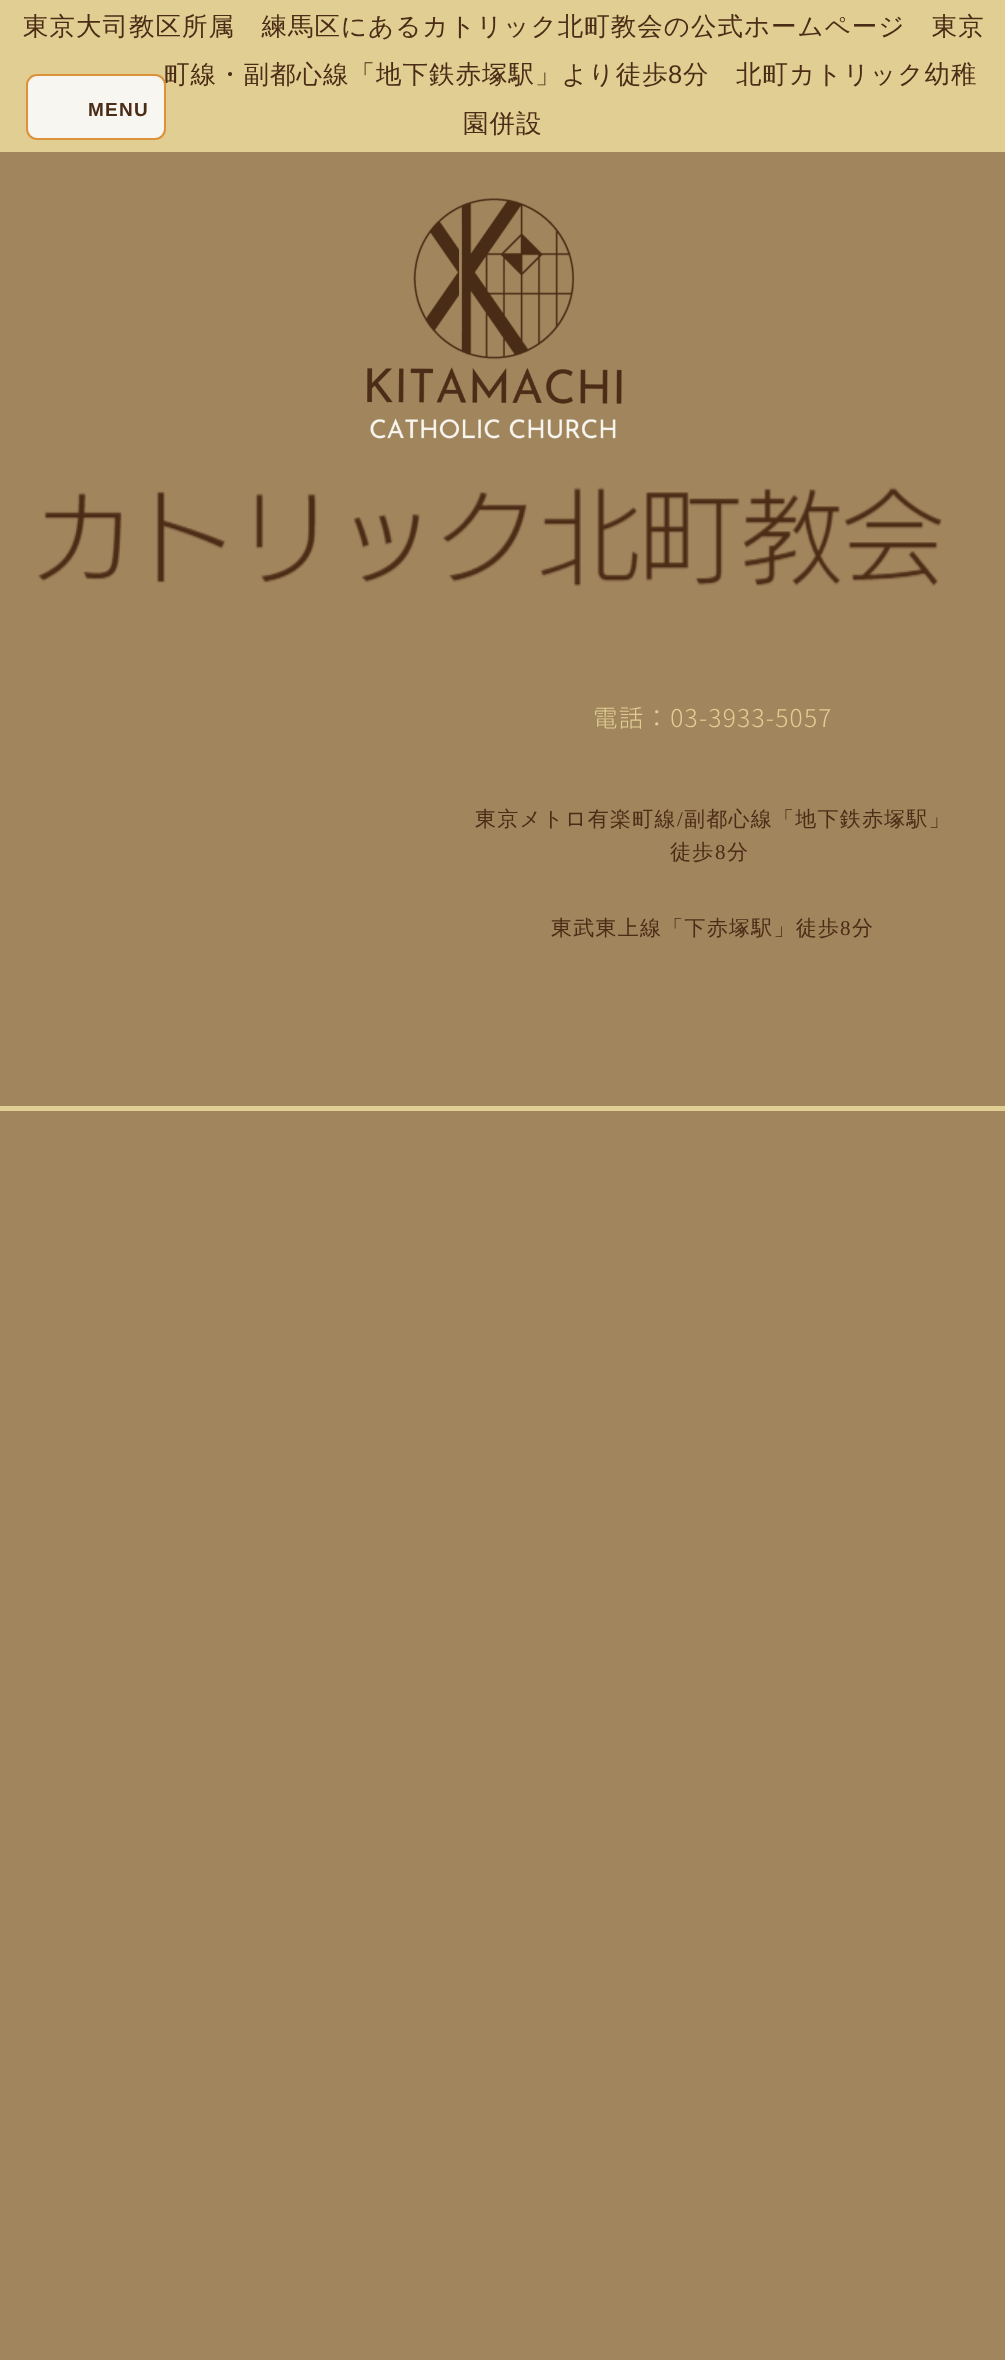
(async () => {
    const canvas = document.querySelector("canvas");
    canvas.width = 1005;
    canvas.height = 2360;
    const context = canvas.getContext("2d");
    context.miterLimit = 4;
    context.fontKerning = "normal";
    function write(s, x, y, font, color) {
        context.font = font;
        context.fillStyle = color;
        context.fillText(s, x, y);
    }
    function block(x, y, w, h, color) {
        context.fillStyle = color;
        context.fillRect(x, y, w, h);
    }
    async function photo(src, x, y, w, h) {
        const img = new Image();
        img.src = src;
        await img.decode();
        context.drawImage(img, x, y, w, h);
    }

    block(0, 0, 1005, 2360, "rgb(160, 133, 93)");
    block(0, 1106, 1005, 5, "rgb(224, 206, 147)");
    block(0, 0, 1005, 152, "rgb(224, 206, 147)");
    context.letterSpacing = "1px";
    write("東京大司教区所属　練馬区にあるカトリック北町教会の公式ホームページ　東京", 23, 35, "500 25.5px WenQuanYi Zen Hei", "rgb(75, 44, 22)");
    write("町線・副都心線「地下鉄赤塚駅」より徒歩", 164, 83, "500 25.5px WenQuanYi Zen Hei", "rgb(75, 44, 22)");
    write("8", 668, 83, "25.5px Liberation Sans", "rgb(75, 44, 22)");
    write("分　北町カトリック幼稚", 683, 83, "500 25.5px WenQuanYi Zen Hei", "rgb(75, 44, 22)");
    write("園併設", 463, 132, "500 25.5px WenQuanYi Zen Hei", "rgb(75, 44, 22)");
    context.fillStyle = "rgb(248, 246, 240)";
    context.beginPath();
    context.roundRect(27, 75, 138, 64, 10);
    context.fill();
    context.strokeStyle = "rgb(221, 145, 59)";
    context.lineWidth = 2;
    context.stroke();
    context.letterSpacing = "1.25px";
    write("MENU", 88, 116, "bold 19px Liberation Sans", "rgb(75, 44, 22)");
    await photo("media/1.png", 367, 198, 255, 241);
    await photo("media/2.png", 38, 487, 904, 100);
    write("電話：03-3933-5057", 593, 727, "100 24.5px Noto Sans JP", "rgb(224, 206, 147)");
    write("東京メトロ有楽町線", 475, 826, "500 21px WenQuanYi Zen Hei", "rgb(75, 44, 22)");
    write("/", 677, 826, "21px Liberation Serif", "rgb(75, 44, 22)");
    write("副都心線「地下鉄赤塚駅」", 684, 826, "500 21px WenQuanYi Zen Hei", "rgb(75, 44, 22)");
    write("徒歩", 670, 859, "500 21px WenQuanYi Zen Hei", "rgb(75, 44, 22)");
    write("8", 715, 859, "21px Liberation Serif", "rgb(75, 44, 22)");
    write("分", 727, 859, "500 21px WenQuanYi Zen Hei", "rgb(75, 44, 22)");
    write("東武東上線「下赤塚駅」徒歩", 551, 935, "500 21px WenQuanYi Zen Hei", "rgb(75, 44, 22)");
    write("8", 840, 935, "21px Liberation Serif", "rgb(75, 44, 22)");
    write("分", 852, 935, "500 21px WenQuanYi Zen Hei", "rgb(75, 44, 22)");
})();
